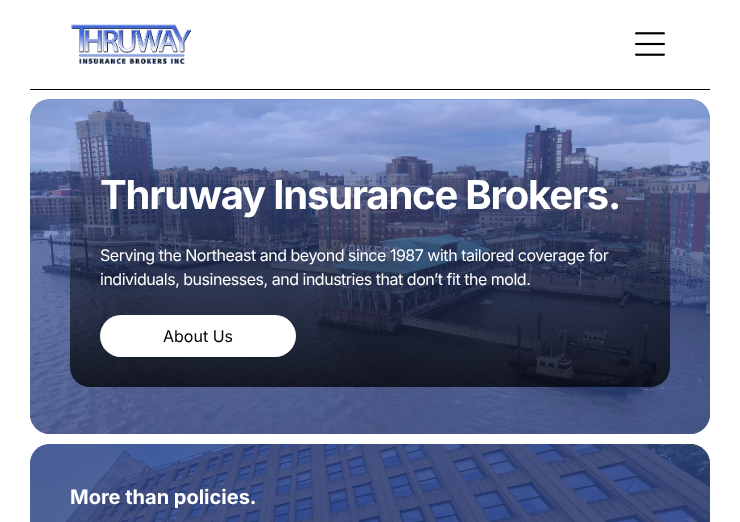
(async () => {
    const canvas = document.querySelector("canvas");
    canvas.width = 740;
    canvas.height = 522;
    const context = canvas.getContext("2d");
    context.miterLimit = 4;
    context.fontKerning = "normal";
    function write(s, x, y, font, color) {
        context.font = font;
        context.fillStyle = color;
        context.fillText(s, x, y);
    }
    function block(x, y, w, h, color) {
        context.fillStyle = color;
        context.fillRect(x, y, w, h);
    }
    function card(x, y, w, h, r, color) {
        context.fillStyle = color;
        context.beginPath();
        context.roundRect(x, y, w, h, r);
        context.fill();
    }
    async function photo(src, x, y, w, h) {
        const img = new Image();
        img.src = src;
        await img.decode();
        context.drawImage(img, x, y, w, h);
    }
    let gradient;

    block(0, 0, 740, 522, "rgb(255, 255, 255)");
    await photo("media/1.png", 71, 24, 120, 40);
    await photo("media/2.png", 635, 32, 30, 24);
    block(30, 89, 680, 1, "rgb(0, 0, 0)");
    card(30, 99, 680, 335, 20, "rgb(191, 190, 190)");
    card(30, 99, 680, 335, 20, "rgba(62, 102, 224, 0.41)");
    await photo("media/3.png", 30, 99, 680, 335);
    card(30, 99, 680, 335, 20, "rgba(62, 102, 224, 0.41)");
    gradient = context.createLinearGradient(370, 140, 370, 387);
    gradient.addColorStop(0, "rgba(0, 0, 0, 0)");
    gradient.addColorStop(1, "rgba(0, 0, 0, 0.76)");
    context.fillStyle = gradient;
    context.beginPath();
    context.roundRect(70, 140, 600, 247, [0, 0, 20, 20]);
    context.fill();
    context.letterSpacing = "-1.2px";
    write("Thruway Insurance Brokers.", 100, 209, "bold 40px Inter", "rgb(255, 255, 255)");
    context.letterSpacing = "-0.48px";
    write("Serving the Northeast and beyond since 1987 with tailored coverage for", 100, 261, "16px Inter", "rgb(255, 255, 255)");
    write("individuals, businesses, and industries that don’t fit the mold.", 100, 285, "16px Inter", "rgb(255, 255, 255)");
    card(100, 315, 196, 42, 21, "rgb(255, 255, 255)");
    context.letterSpacing = "0px";
    write("About Us", 163, 342, "16px Inter", "rgb(0, 0, 0)");
    card(30, 444, 680, 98, 20, "rgb(38, 60, 129)");
    await photo("media/4.png", 30, 444, 680, 78);
    card(30, 444, 680, 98, 20, "rgba(38, 60, 129, 0.77)");
    write("More than policies.", 70, 504, "bold 20px Inter", "rgb(255, 255, 255)");
})();
